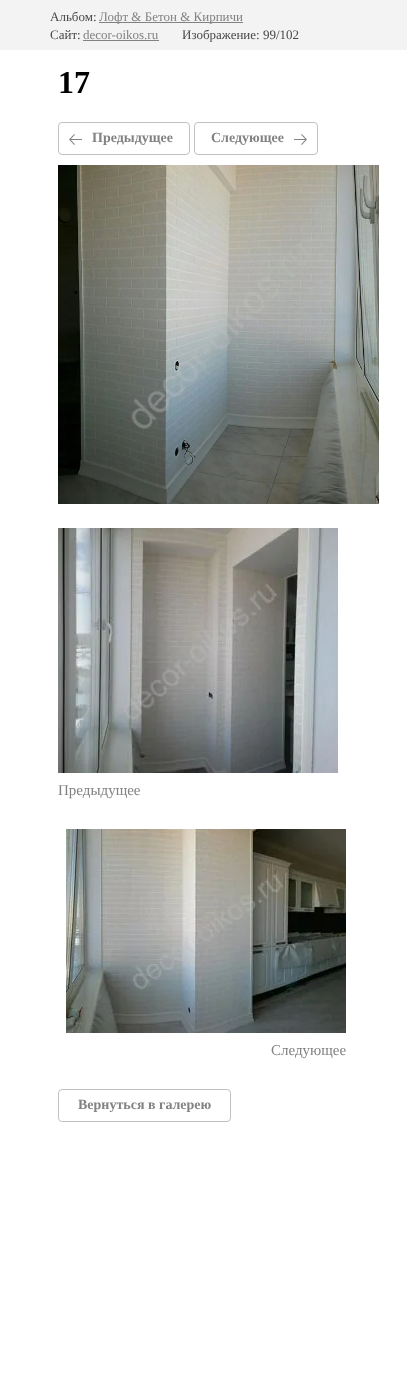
(async () => {
    const canvas = document.querySelector("canvas");
    canvas.width = 407;
    canvas.height = 1399;
    const context = canvas.getContext("2d");
    context.miterLimit = 4;
    context.fontKerning = "normal";
    function write(s, x, y, font, color) {
        context.font = font;
        context.fillStyle = color;
        context.fillText(s, x, y);
    }
    function block(x, y, w, h, color) {
        context.fillStyle = color;
        context.fillRect(x, y, w, h);
    }
    async function photo(src, x, y, w, h) {
        const img = new Image();
        img.src = src;
        await img.decode();
        context.drawImage(img, x, y, w, h);
    }

    block(0, 0, 407, 1399, "rgb(255, 255, 255)");
    block(0, 0, 407, 50, "rgb(243, 243, 243)");
    write("Альбом:", 50, 21, "13px Liberation Serif", "rgb(72, 72, 72)");
    block(99, 22, 144, 1, "rgb(130, 130, 130)");
    write("Лофт & Бетон & Кирпичи", 99, 21, "13px Liberation Serif", "rgb(130, 130, 130)");
    write("Сайт:", 50, 39, "13px Liberation Serif", "rgb(72, 72, 72)");
    write("decor-oikos.ru", 83, 39, "13px Liberation Serif", "rgb(130, 130, 130)");
    block(83, 40, 76, 1, "rgb(130, 130, 130)");
    write("Изображение: 99/102", 182, 39, "13px Liberation Serif", "rgb(72, 72, 72)");
    write("17", 58, 93, "bold 32px Liberation Serif", "rgb(0, 0, 0)");
    context.beginPath();
    context.roundRect(58.5, 122.5, 131, 32, 3.5);
    context.strokeStyle = "rgb(193, 193, 193)";
    context.stroke();
    await photo("media/1.png", 69, 134, 13, 11);
    write("Предыдущее", 92, 142, "bold 14px Liberation Serif", "rgb(130, 130, 130)");
    context.beginPath();
    context.roundRect(194.5, 122.5, 123, 32, 3.5);
    context.stroke();
    write("Следующее", 211, 142, "bold 14px Liberation Serif", "rgb(130, 130, 130)");
    await photo("media/2.png", 294, 134, 13, 11);
    await photo("media/3.png", 58, 165, 321, 339);
    await photo("media/4.png", 58, 528, 280, 245);
    write("Предыдущее", 58, 795, "15px Liberation Serif", "rgb(130, 130, 130)");
    await photo("media/5.png", 66, 829, 280, 204);
    write("Следующее", 271, 1055, "15px Liberation Serif", "rgb(130, 130, 130)");
    context.beginPath();
    context.roundRect(58.5, 1089.5, 172, 32, 3.5);
    context.stroke();
    write("Вернуться в галерею", 78, 1109, "bold 14px Liberation Serif", "rgb(130, 130, 130)");
})();
